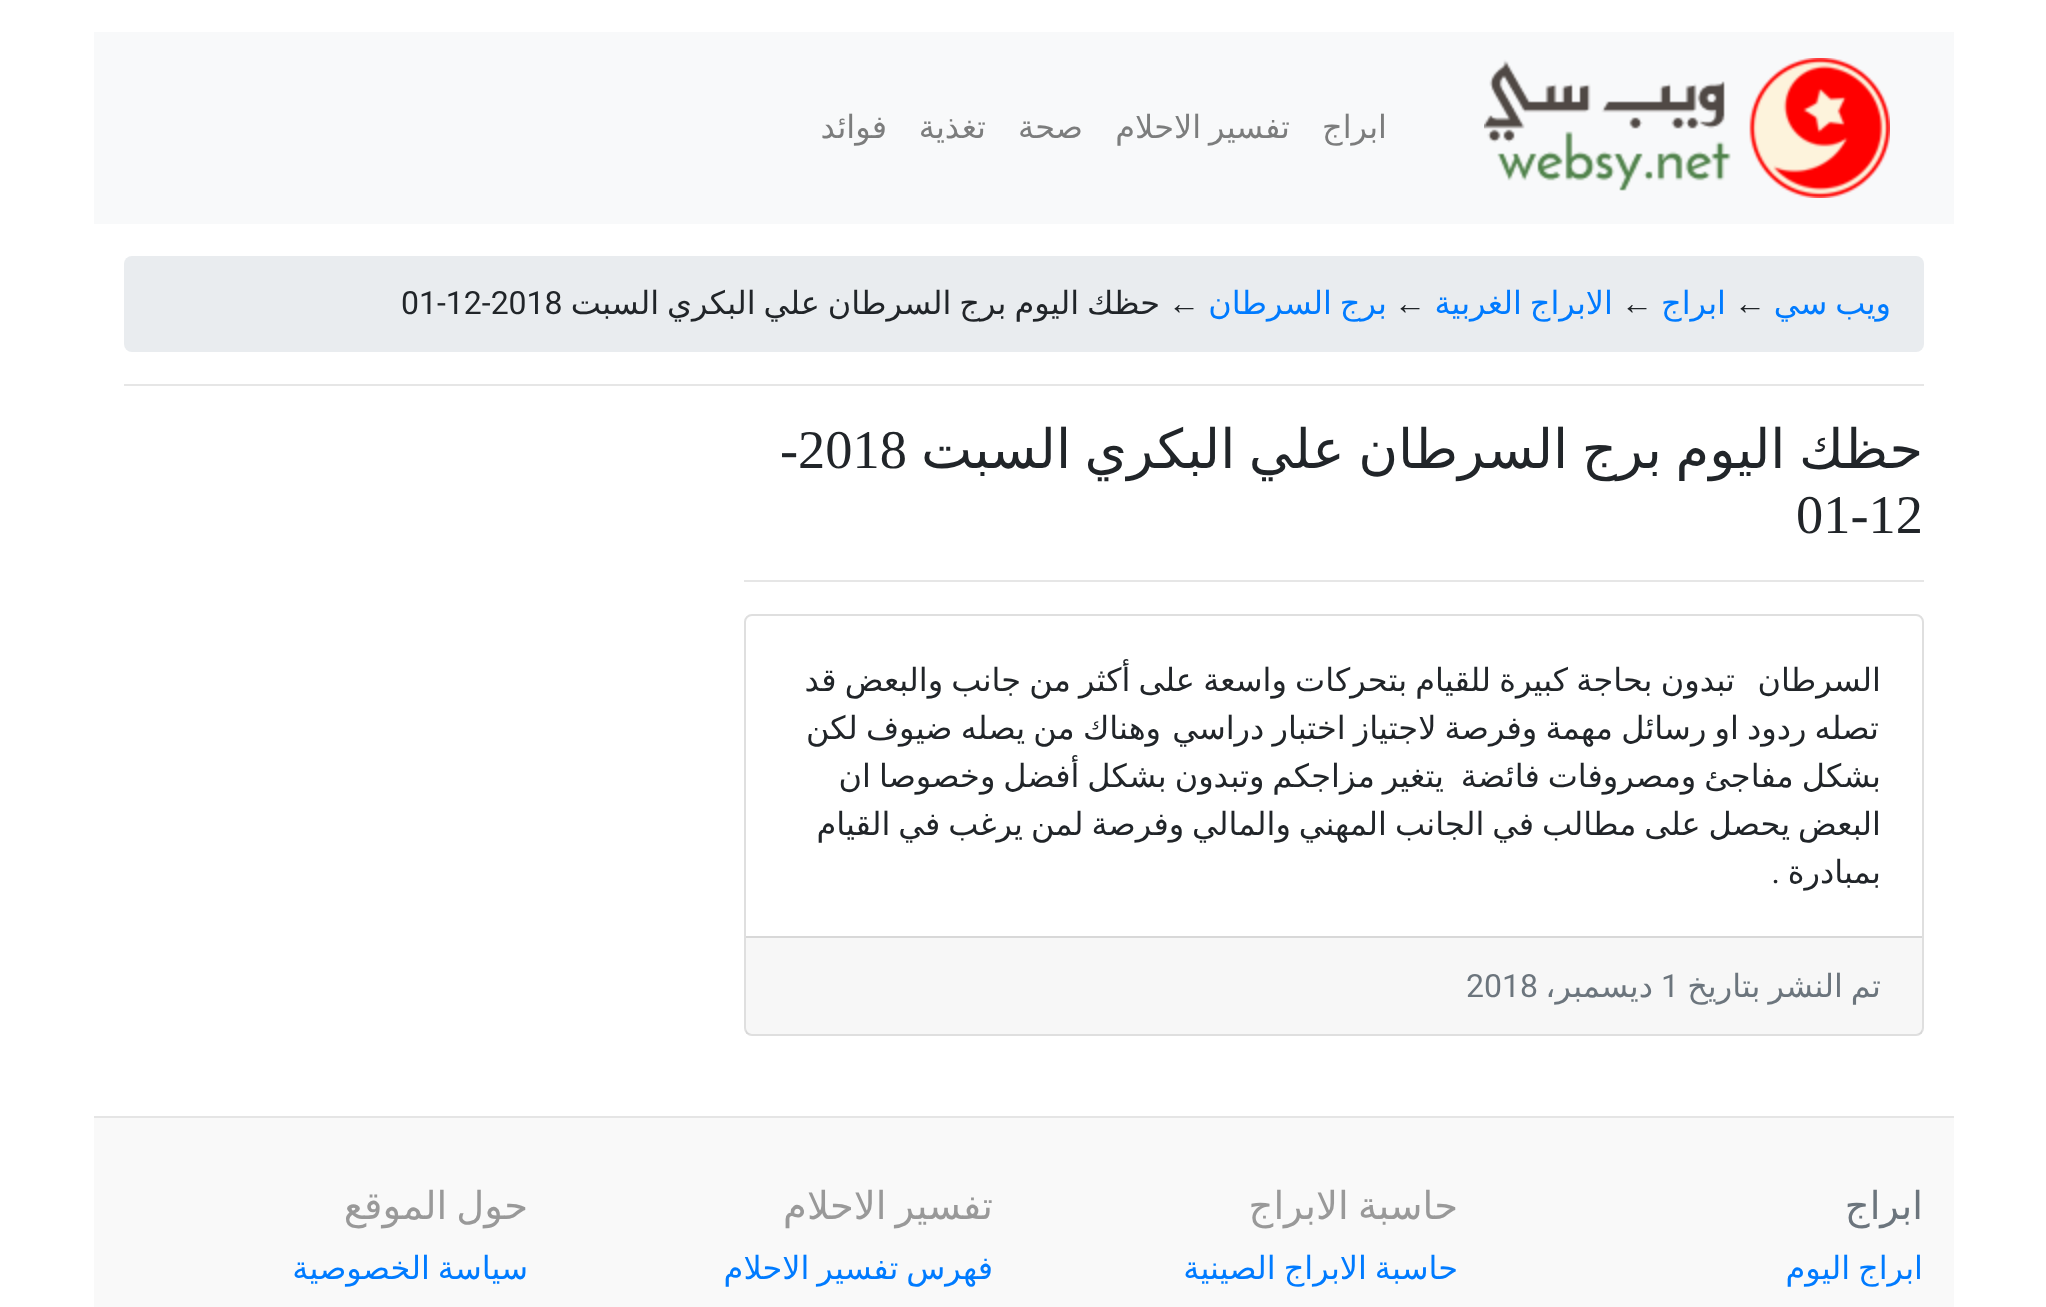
(async () => {
    const canvas = document.querySelector("canvas");
    canvas.width = 2046;
    canvas.height = 1307;
    const context = canvas.getContext("2d");
    context.miterLimit = 4;
    context.fontKerning = "normal";
    function write(s, x, y, font, color) {
        context.font = font;
        context.fillStyle = color;
        context.fillText(s, x, y);
    }
    function block(x, y, w, h, color) {
        context.fillStyle = color;
        context.fillRect(x, y, w, h);
    }
    function card(x, y, w, h, r, color) {
        context.fillStyle = color;
        context.beginPath();
        context.roundRect(x, y, w, h, r);
        context.fill();
    }
    async function photo(src, x, y, w, h) {
        const img = new Image();
        img.src = src;
        await img.decode();
        context.drawImage(img, x, y, w, h);
    }

    block(0, 0, 2046, 1307, "rgb(255, 255, 255)");
    block(94, 32, 1860, 192, "rgb(248, 249, 250)");
    await photo("media/1.png", 1484, 58, 406, 140);
    context.direction = "rtl";
    write("ابراج", 1387, 138, "32px DejaVu Sans", "rgb(124, 125, 125)");
    context.wordSpacing = "-2.25px";
    write("تفسير الاحلام", 1290, 138, "32px DejaVu Sans", "rgb(124, 125, 125)");
    context.wordSpacing = "0px";
    write("صحة", 1083, 138, "32px DejaVu Sans", "rgb(124, 125, 125)");
    write("تغذية", 986, 138, "32px DejaVu Sans", "rgb(124, 125, 125)");
    write("فوائد", 887, 138, "32px DejaVu Sans", "rgb(124, 125, 125)");
    card(124, 256, 1800, 96, 8, "rgb(233, 236, 239)");
    context.wordSpacing = "-2.25px";
    write("ويب سي", 1891, 314, "32px DejaVu Sans", "rgb(0, 123, 255)");
    context.wordSpacing = "0px";
    context.direction = "ltr";
    write("←", 1734, 314, "32px Liberation Sans", "rgb(33, 37, 41)");
    context.direction = "rtl";
    write("ابراج", 1726, 314, "32px DejaVu Sans", "rgb(0, 123, 255)");
    context.direction = "ltr";
    write("←", 1621, 314, "32px Liberation Sans", "rgb(33, 37, 41)");
    context.wordSpacing = "-2.25px";
    context.direction = "rtl";
    write("الابراج الغربية", 1613, 314, "32px DejaVu Sans", "rgb(0, 123, 255)");
    context.wordSpacing = "0px";
    context.direction = "ltr";
    write("←", 1394, 314, "32px Liberation Sans", "rgb(33, 37, 41)");
    context.wordSpacing = "-2.25px";
    context.direction = "rtl";
    write("برج السرطان", 1387, 314, "32px DejaVu Sans", "rgb(0, 123, 255)");
    context.wordSpacing = "0px";
    context.direction = "ltr";
    write("←", 1168, 314, "32px Liberation Sans", "rgb(33, 37, 41)");
    context.wordSpacing = "-2.25px";
    context.direction = "rtl";
    write("حظك اليوم برج السرطان علي البكري السبت", 1160, 314, "32px DejaVu Sans", "rgb(33, 37, 41)");
    context.wordSpacing = "0px";
    context.direction = "ltr";
    write("01-12-2018", 401, 314, "32px Roboto", "rgb(33, 37, 41)");
    block(124, 384, 1800, 2, "rgb(230, 230, 230)");
    context.wordSpacing = "-3.75px";
    context.direction = "rtl";
    write("حظك اليوم برج السرطان علي البكري السبت", 1923, 468, "54.4px DejaVu Sans", "rgb(33, 37, 41)");
    context.wordSpacing = "0px";
    context.direction = "ltr";
    write("-2018", 780, 468, "54.4px Liberation Serif", "rgb(33, 37, 41)");
    write("01-12", 1796, 533, "54.4px Liberation Serif", "rgb(33, 37, 41)");
    block(744, 580, 1180, 2, "rgb(230, 230, 230)");
    context.beginPath();
    context.roundRect(745, 615, 1178, 420, 7);
    context.strokeStyle = "rgb(223, 223, 223)";
    context.lineWidth = 2;
    context.stroke();
    context.direction = "rtl";
    write("السرطان", 1881, 691, "32px DejaVu Sans", "rgb(33, 37, 41)");
    context.wordSpacing = "-2px";
    write("تبدون بحاجة كبيرة للقيام بتحركات واسعة على أكثر من جانب والبعض قد", 1735, 691, "32px DejaVu Sans", "rgb(33, 37, 41)");
    write("تصله ردود او رسائل مهمة وفرصة لاجتياز اختبار دراسي", 1879, 739, "32px DejaVu Sans", "rgb(33, 37, 41)");
    write("وهناك من يصله ضيوف لكن", 1161, 739, "32px DejaVu Sans", "rgb(33, 37, 41)");
    context.wordSpacing = "-2.25px";
    write("بشكل مفاجئ ومصروفات فائضة", 1881, 787, "32px DejaVu Sans", "rgb(33, 37, 41)");
    write("يتغير مزاجكم وتبدون بشكل أفضل وخصوصا ان", 1444, 787, "32px DejaVu Sans", "rgb(33, 37, 41)");
    write("البعض يحصل على مطالب في الجانب المهني والمالي وفرصة لمن يرغب في القيام", 1881, 835, "32px DejaVu Sans", "rgb(33, 37, 41)");
    context.wordSpacing = "0px";
    write("بمبادرة", 1881, 883, "32px DejaVu Sans", "rgb(33, 37, 41)");
    write(".", 1780, 883, "32px Roboto", "rgb(33, 37, 41)");
    block(746, 938, 1176, 96, "rgba(0, 0, 0, 0.03)");
    block(746, 936, 1176, 2, "rgb(216, 216, 216)");
    context.wordSpacing = "-2.25px";
    write("تم النشر بتاريخ", 1881, 997, "32px DejaVu Sans", "rgb(108, 117, 125)");
    context.wordSpacing = "0px";
    context.direction = "ltr";
    write("1", 1661, 997, "32px Roboto", "rgb(108, 117, 125)");
    context.direction = "rtl";
    write("ديسمبر،", 1653, 997, "32px DejaVu Sans", "rgb(108, 117, 125)");
    context.direction = "ltr";
    write("2018", 1466, 997, "32px Roboto", "rgb(108, 117, 125)");
    block(94, 1118, 1860, 189, "rgb(249, 249, 249)");
    block(94, 1116, 1860, 2, "rgb(229, 229, 229)");
    context.direction = "rtl";
    write("ابراج", 1923, 1219, "38.5px DejaVu Sans", "rgb(108, 117, 125)");
    context.wordSpacing = "-2.25px";
    write("ابراج اليوم", 1923, 1279, "32px DejaVu Sans", "rgb(0, 123, 255)");
    context.wordSpacing = "-3px";
    write("حاسبة الابراج", 1458, 1219, "38.5px DejaVu Sans", "rgb(153, 153, 153)");
    context.wordSpacing = "-2.25px";
    write("حاسبة الابراج الصينية", 1458, 1279, "32px DejaVu Sans", "rgb(0, 123, 255)");
    context.wordSpacing = "-3px";
    write("تفسير الاحلام", 993, 1219, "38.5px DejaVu Sans", "rgb(153, 153, 153)");
    context.wordSpacing = "-2.25px";
    write("فهرس تفسير الاحلام", 993, 1279, "32px DejaVu Sans", "rgb(0, 123, 255)");
    context.wordSpacing = "-3px";
    write("حول الموقع", 528, 1219, "38.5px DejaVu Sans", "rgb(153, 153, 153)");
    context.wordSpacing = "-2.25px";
    write("سياسة الخصوصية", 528, 1279, "32px DejaVu Sans", "rgb(0, 123, 255)");
})();
